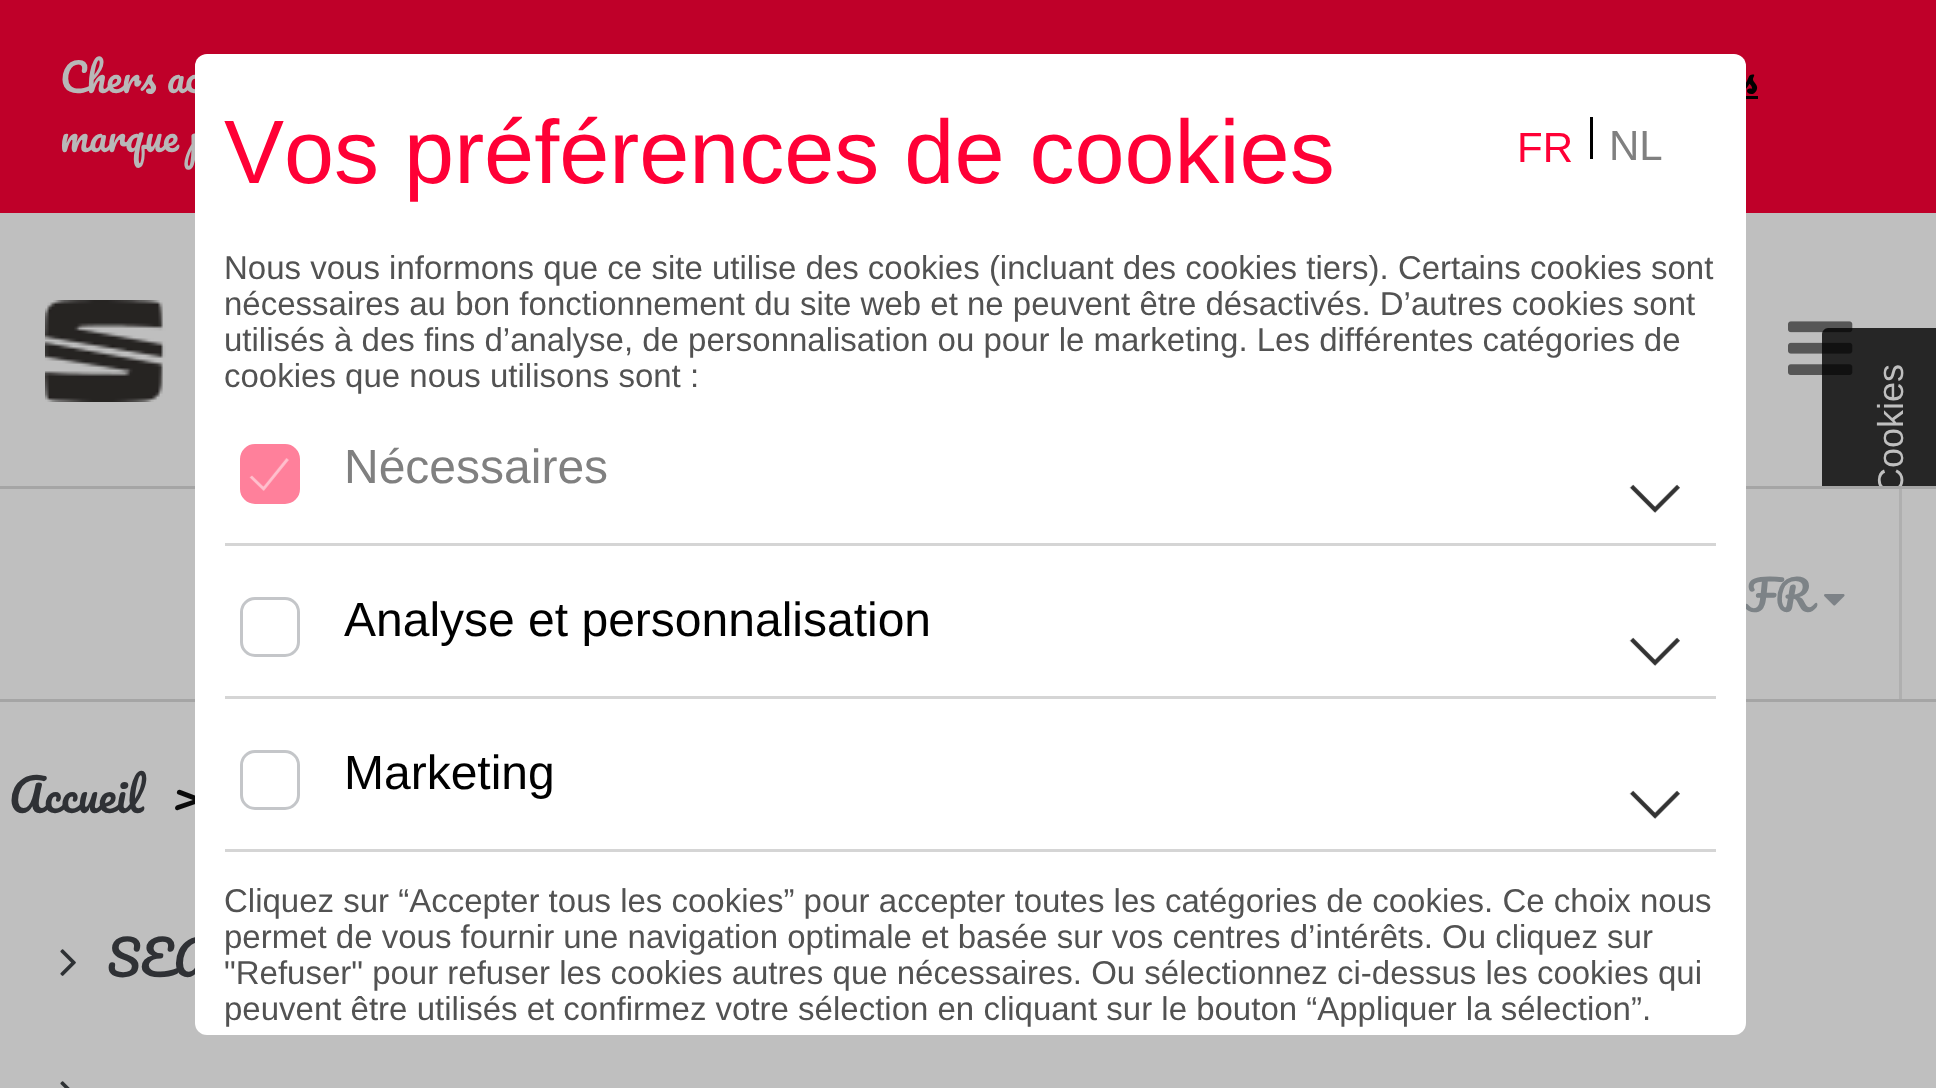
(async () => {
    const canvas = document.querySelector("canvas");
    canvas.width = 1936;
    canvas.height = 1088;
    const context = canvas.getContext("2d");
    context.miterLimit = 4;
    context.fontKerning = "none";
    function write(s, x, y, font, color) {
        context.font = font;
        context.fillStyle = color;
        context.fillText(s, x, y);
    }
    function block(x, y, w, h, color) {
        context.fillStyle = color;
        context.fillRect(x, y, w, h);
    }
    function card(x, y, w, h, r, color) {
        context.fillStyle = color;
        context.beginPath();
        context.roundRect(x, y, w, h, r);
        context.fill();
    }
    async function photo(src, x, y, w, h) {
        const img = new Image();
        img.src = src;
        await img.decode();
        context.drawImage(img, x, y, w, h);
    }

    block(0, 0, 1936, 1088, "rgb(191, 191, 191)");
    block(0, 0, 1936, 213, "rgb(191, 0, 41)");
    write("Chers ac", 60, 93, "39px Pacifico", "rgb(184, 184, 184)");
    write("marque p", 60, 152, "39px Pacifico", "rgb(184, 184, 184)");
    write("s", 1742, 93, "39px Pacifico", "rgb(0, 0, 0)");
    block(1746, 96, 12, 3, "rgb(0, 0, 0)");
    context.fillStyle = "rgb(38, 38, 38)";
    context.beginPath();
    context.moveTo(1822, 524);
    context.lineTo(1822, 334);
    context.bezierCurveTo(1822, 331, 1825, 328, 1828, 328);
    context.lineTo(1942, 328);
    context.lineTo(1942, 530);
    context.lineTo(1828, 530);
    context.bezierCurveTo(1825, 530, 1822, 527, 1822, 524);
    context.closePath();
    context.fill();
    context.font = "36px Liberation Sans";
    context.fillStyle = "rgb(191, 191, 191)";
    context.save();
    context.translate(1903, 494);
    context.rotate(-90 * Math.PI / 180);
    context.fillText("Cookies", 0, 0);
    context.restore();
    block(0, 486, 1936, 3, "rgb(165, 165, 165)");
    block(0, 699, 1936, 3, "rgb(165, 165, 165)");
    write("FR", 1745, 612, "42px Pacifico", "rgb(125, 131, 135)");
    write(">", 172, 813, "45px Pacifico", "rgb(11, 11, 11)");
    write("SEA", 107, 977, "48px Pacifico", "rgb(47, 49, 53)");
    card(195, 54, 1551, 981, 12, "rgb(255, 255, 255)");
    write("Vos préférences de cookies", 224, 183, "90px Liberation Sans", "rgb(255, 0, 54)");
    write("FR", 1517, 162, "42px Liberation Sans", "rgb(255, 0, 54)");
    block(1590, 117, 3, 42, "rgb(0, 0, 0)");
    write("NL", 1609, 160, "42px Liberation Sans", "rgb(128, 128, 128)");
    write("Nous vous informons que ce site utilise des cookies (incluant des cookies tiers). Certains cookies sont", 224, 279, "33px Liberation Sans", "rgb(82, 82, 82)");
    write("nécessaires au bon fonctionnement du site web et ne peuvent être désactivés. D’autres cookies sont", 224, 315, "33px Liberation Sans", "rgb(82, 82, 82)");
    write("utilisés à des fins d’analyse, de personnalisation ou pour le marketing. Les différentes catégories de", 224, 351, "33px Liberation Sans", "rgb(82, 82, 82)");
    write("cookies que nous utilisons sont :", 224, 387, "33px Liberation Sans", "rgb(82, 82, 82)");
    context.fillStyle = "rgb(255, 128, 155)";
    context.beginPath();
    context.roundRect(241.5, 445.5, 57, 57, 13.5);
    context.fill();
    context.strokeStyle = "rgb(255, 128, 155)";
    context.lineWidth = 3;
    context.stroke();
    await photo("media/1.png", 249, 458, 40, 33);
    write("Nécessaires", 344, 483, "48px Liberation Sans", "rgb(128, 128, 128)");
    await photo("media/2.png", 1629, 484, 51, 29);
    block(225, 543, 1491, 3, "rgb(213, 213, 213)");
    context.beginPath();
    context.roundRect(241.5, 598.5, 57, 57, 13.5);
    context.strokeStyle = "rgb(196, 198, 201)";
    context.stroke();
    write("Analyse et personnalisation", 344, 636, "48px Liberation Sans", "rgb(0, 0, 0)");
    await photo("media/2.png", 1629, 637, 51, 29);
    block(225, 696, 1491, 3, "rgb(213, 213, 213)");
    context.beginPath();
    context.roundRect(241.5, 751.5, 57, 57, 13.5);
    context.stroke();
    write("Marketing", 344, 789, "48px Liberation Sans", "rgb(0, 0, 0)");
    await photo("media/2.png", 1629, 790, 51, 29);
    block(225, 849, 1491, 3, "rgb(213, 213, 213)");
    write("Cliquez sur “Accepter tous les cookies” pour accepter toutes les catégories de cookies. Ce choix nous", 224, 912, "33px Liberation Sans", "rgb(82, 82, 82)");
    write("permet de vous fournir une navigation optimale et basée sur vos centres d’intérêts. Ou cliquez sur", 224, 948, "33px Liberation Sans", "rgb(82, 82, 82)");
    write("\"Refuser\" pour refuser les cookies autres que nécessaires. Ou sélectionnez ci-dessus les cookies qui", 224, 984, "33px Liberation Sans", "rgb(82, 82, 82)");
    write("peuvent être utilisés et confirmez votre sélection en cliquant sur le bouton “Appliquer la sélection”.", 224, 1020, "33px Liberation Sans", "rgb(82, 82, 82)");
    await photo("media/3.png", 45, 300, 150, 102);
    await photo("media/4.png", 1788, 321, 65, 54);
    block(1822, 489, 114, 41, "rgb(191, 191, 191)");
    block(1899, 489, 3, 210, "rgb(175, 175, 175)");
    await photo("media/5.png", 1824, 594, 21, 12);
    write("Accueil", 9, 813, "45px Pacifico", "rgb(47, 49, 53)");
    await photo("media/6.png", 60, 949, 16, 27);
    await photo("media/7.png", 60, 1081, 10, 7);
})();
